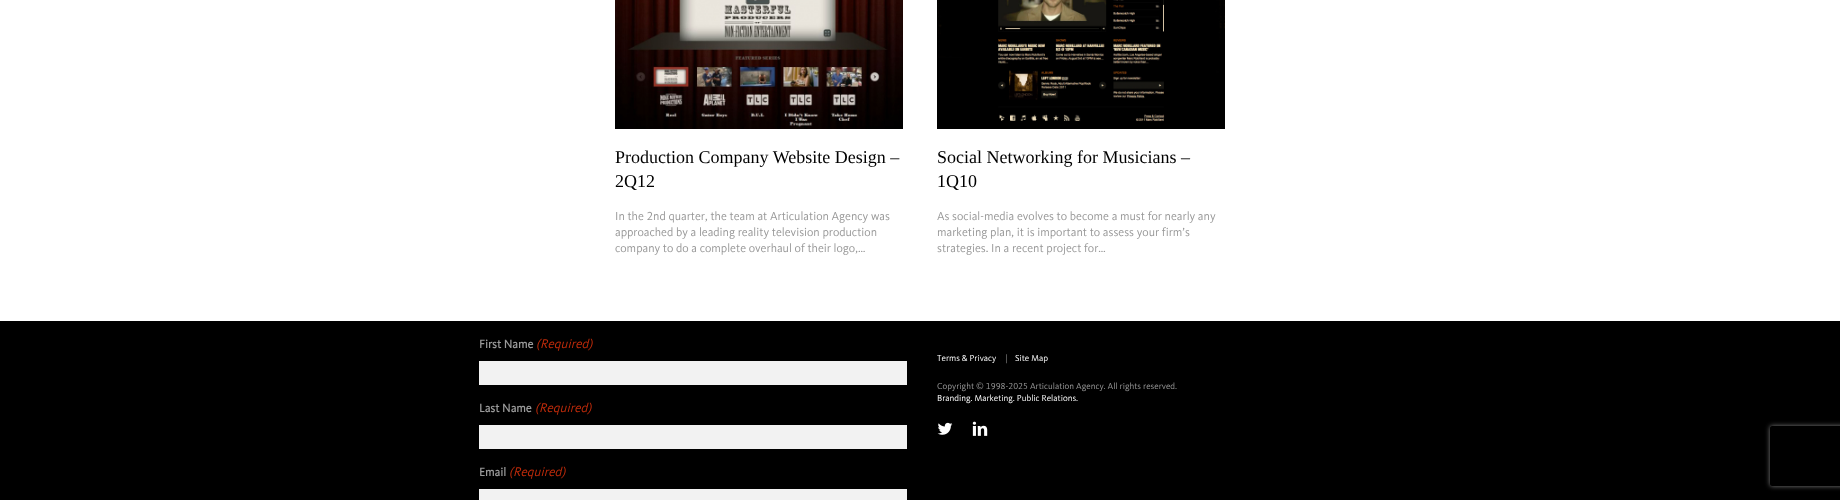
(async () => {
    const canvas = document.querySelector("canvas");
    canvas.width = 1840;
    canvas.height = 500;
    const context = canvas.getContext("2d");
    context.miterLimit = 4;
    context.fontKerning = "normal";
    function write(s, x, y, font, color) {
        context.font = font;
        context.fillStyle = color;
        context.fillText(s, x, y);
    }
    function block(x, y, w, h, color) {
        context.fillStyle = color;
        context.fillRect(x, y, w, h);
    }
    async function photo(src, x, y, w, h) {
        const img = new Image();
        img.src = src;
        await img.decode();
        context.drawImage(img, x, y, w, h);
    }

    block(0, 0, 1840, 500, "rgb(255, 255, 255)");
    await photo("media/1.png", 615, 0, 288, 129);
    write("Production Company Website Design –", 615, 163, "18px Liberation Serif", "rgb(0, 0, 0)");
    write("2Q12", 615, 187, "18px Liberation Serif", "rgb(0, 0, 0)");
    write("In the 2nd quarter, the team at Articulation Agency was", 615, 220, "12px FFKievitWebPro", "rgb(153, 153, 153)");
    write("approached by a leading reality television production", 615, 236, "12px FFKievitWebPro", "rgb(153, 153, 153)");
    write("company to do a complete overhaul of their logo,…", 615, 252, "12px FFKievitWebPro", "rgb(153, 153, 153)");
    await photo("media/2.png", 937, 0, 288, 129);
    write("Social Networking for Musicians –", 937, 163, "18px Liberation Serif", "rgb(0, 0, 0)");
    write("1Q10", 937, 187, "18px Liberation Serif", "rgb(0, 0, 0)");
    write("As social-media evolves to become a must for nearly any", 937, 220, "12px FFKievitWebPro", "rgb(153, 153, 153)");
    write("marketing plan, it is important to assess your firm’s", 937, 236, "12px FFKievitWebPro", "rgb(153, 153, 153)");
    write("strategies. In a recent project for…", 937, 252, "12px FFKievitWebPro", "rgb(153, 153, 153)");
    block(0, 321, 1840, 179, "rgb(0, 0, 0)");
    write("First Name", 479, 348, "bold 12px FFKievitWebPro", "rgb(153, 153, 153)");
    write("(Required)", 536, 348, "italic 13px FFKievitWebPro", "rgb(192, 43, 10)");
    block(479, 361, 428, 24, "rgb(242, 242, 242)");
    write("Last Name", 479, 412, "bold 12px FFKievitWebPro", "rgb(153, 153, 153)");
    write("(Required)", 535, 412, "italic 13px FFKievitWebPro", "rgb(192, 43, 10)");
    block(479, 425, 428, 24, "rgb(242, 242, 242)");
    write("Email", 479, 476, "bold 12px FFKievitWebPro", "rgb(153, 153, 153)");
    write("(Required)", 509, 476, "italic 13px FFKievitWebPro", "rgb(192, 43, 10)");
    block(479, 489, 428, 11, "rgb(242, 242, 242)");
    context.save();
    context.beginPath();
    context.moveTo(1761, 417);
    context.lineTo(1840, 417);
    context.lineTo(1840, 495);
    context.lineTo(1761, 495);
    context.closePath();
    context.moveTo(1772, 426);
    context.lineTo(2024, 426);
    context.bezierCurveTo(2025, 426, 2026, 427, 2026, 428);
    context.lineTo(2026, 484);
    context.bezierCurveTo(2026, 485, 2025, 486, 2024, 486);
    context.lineTo(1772, 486);
    context.bezierCurveTo(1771, 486, 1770, 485, 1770, 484);
    context.lineTo(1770, 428);
    context.bezierCurveTo(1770, 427, 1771, 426, 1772, 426);
    context.closePath();
    context.clip("evenodd");
    context.fillStyle = "rgb(128, 128, 128)";
    context.filter = "blur(2.5px)";
    context.beginPath();
    context.roundRect(1770, 426, 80, 60, 2);
    context.fill();
    context.filter = "none";
    context.restore();
    write("Terms & Privacy", 937, 361, "9px FFKievitWebPro", "rgb(255, 255, 255)");
    write("|", 1005, 361, "9px FFKievitWebPro", "rgb(153, 153, 153)");
    write("Site Map", 1015, 361, "9px FFKievitWebPro", "rgb(255, 255, 255)");
    write("Copyright © 1998-2025 Articulation Agency. All rights reserved.", 937, 389, "9px FFKievitWebPro", "rgb(153, 153, 153)");
    write("Branding. Marketing. Public Relations.", 937, 401, "9px FFKievitWebPro", "rgb(255, 255, 255)");
    await photo("media/3.png", 937, 422, 16, 13);
    await photo("media/4.png", 972, 421, 16, 15);
})();
